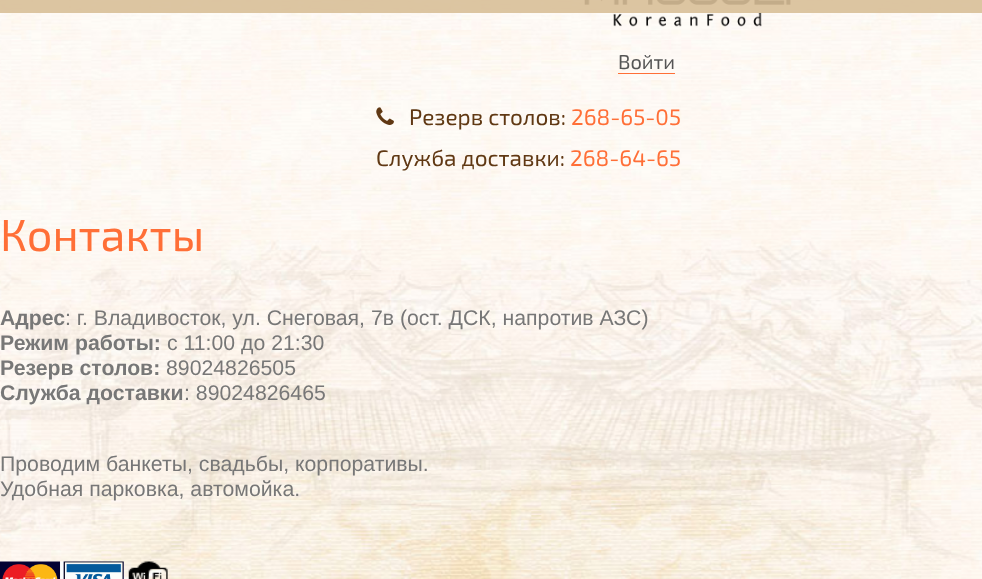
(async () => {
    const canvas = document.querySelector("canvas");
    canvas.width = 982;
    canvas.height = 579;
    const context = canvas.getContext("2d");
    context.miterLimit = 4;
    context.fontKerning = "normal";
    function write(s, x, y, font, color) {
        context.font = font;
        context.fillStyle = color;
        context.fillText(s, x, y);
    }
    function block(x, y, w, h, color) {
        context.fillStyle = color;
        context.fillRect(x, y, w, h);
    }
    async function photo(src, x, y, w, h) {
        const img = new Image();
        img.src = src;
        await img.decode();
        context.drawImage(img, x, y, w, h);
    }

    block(0, 0, 982, 579, "rgb(255, 255, 255)");
    await photo("media/1.png", 0, 0, 982, 579);
    await photo("media/2.png", 584, 0, 207, 27);
    block(0, 0, 982, 13, "rgba(216, 191, 152, 0.9)");
    write("Войти", 618, 69, "20px 'Exo 2'", "rgb(85, 85, 85)");
    block(618, 73, 57, 1, "rgb(255, 111, 55)");
    await photo("media/3.png", 376, 107, 18, 18);
    write("Резерв столов:", 409, 125, "22.5px 'Exo 2'", "rgb(96, 56, 19)");
    write("268-65-05", 571, 125, "22.5px 'Exo 2'", "rgb(255, 111, 55)");
    write("Служба доставки:", 376, 166, "22.5px 'Exo 2'", "rgb(96, 56, 19)");
    write("268-64-65", 570, 166, "22.5px 'Exo 2'", "rgb(255, 111, 55)");
    write("Контакты", 0, 251, "45px 'Exo 2'", "rgb(255, 111, 55)");
    write("Адрес", 0, 325, "bold 21.25px Liberation Sans", "rgb(119, 119, 119)");
    write(": г. Владивосток, ул. Снеговая, 7в (ост. ДСК, напротив АЗС)", 65, 325, "21.25px Liberation Sans", "rgb(119, 119, 119)");
    write("Режим работы:", 0, 350, "bold 21.25px Liberation Sans", "rgb(119, 119, 119)");
    write("c 11:00 до 21:30", 167, 350, "21.25px Liberation Sans", "rgb(119, 119, 119)");
    write("Резерв столов:", 0, 375, "bold 21.25px Liberation Sans", "rgb(119, 119, 119)");
    write("89024826505", 166, 375, "21.25px Liberation Sans", "rgb(119, 119, 119)");
    write("Служба доставки", 0, 400, "bold 21.25px Liberation Sans", "rgb(119, 119, 119)");
    write(": 89024826465", 184, 400, "21.25px Liberation Sans", "rgb(119, 119, 119)");
    write("Проводим банкеты, свадьбы, корпоративы.", 0, 471, "21.25px Liberation Sans", "rgb(119, 119, 119)");
    write("Удобная парковка, автомойка.", 0, 496, "21.25px Liberation Sans", "rgb(119, 119, 119)");
    await photo("media/4.png", 0, 561, 124, 18);
    await photo("media/5.png", 128, 561, 40, 18);
})();
